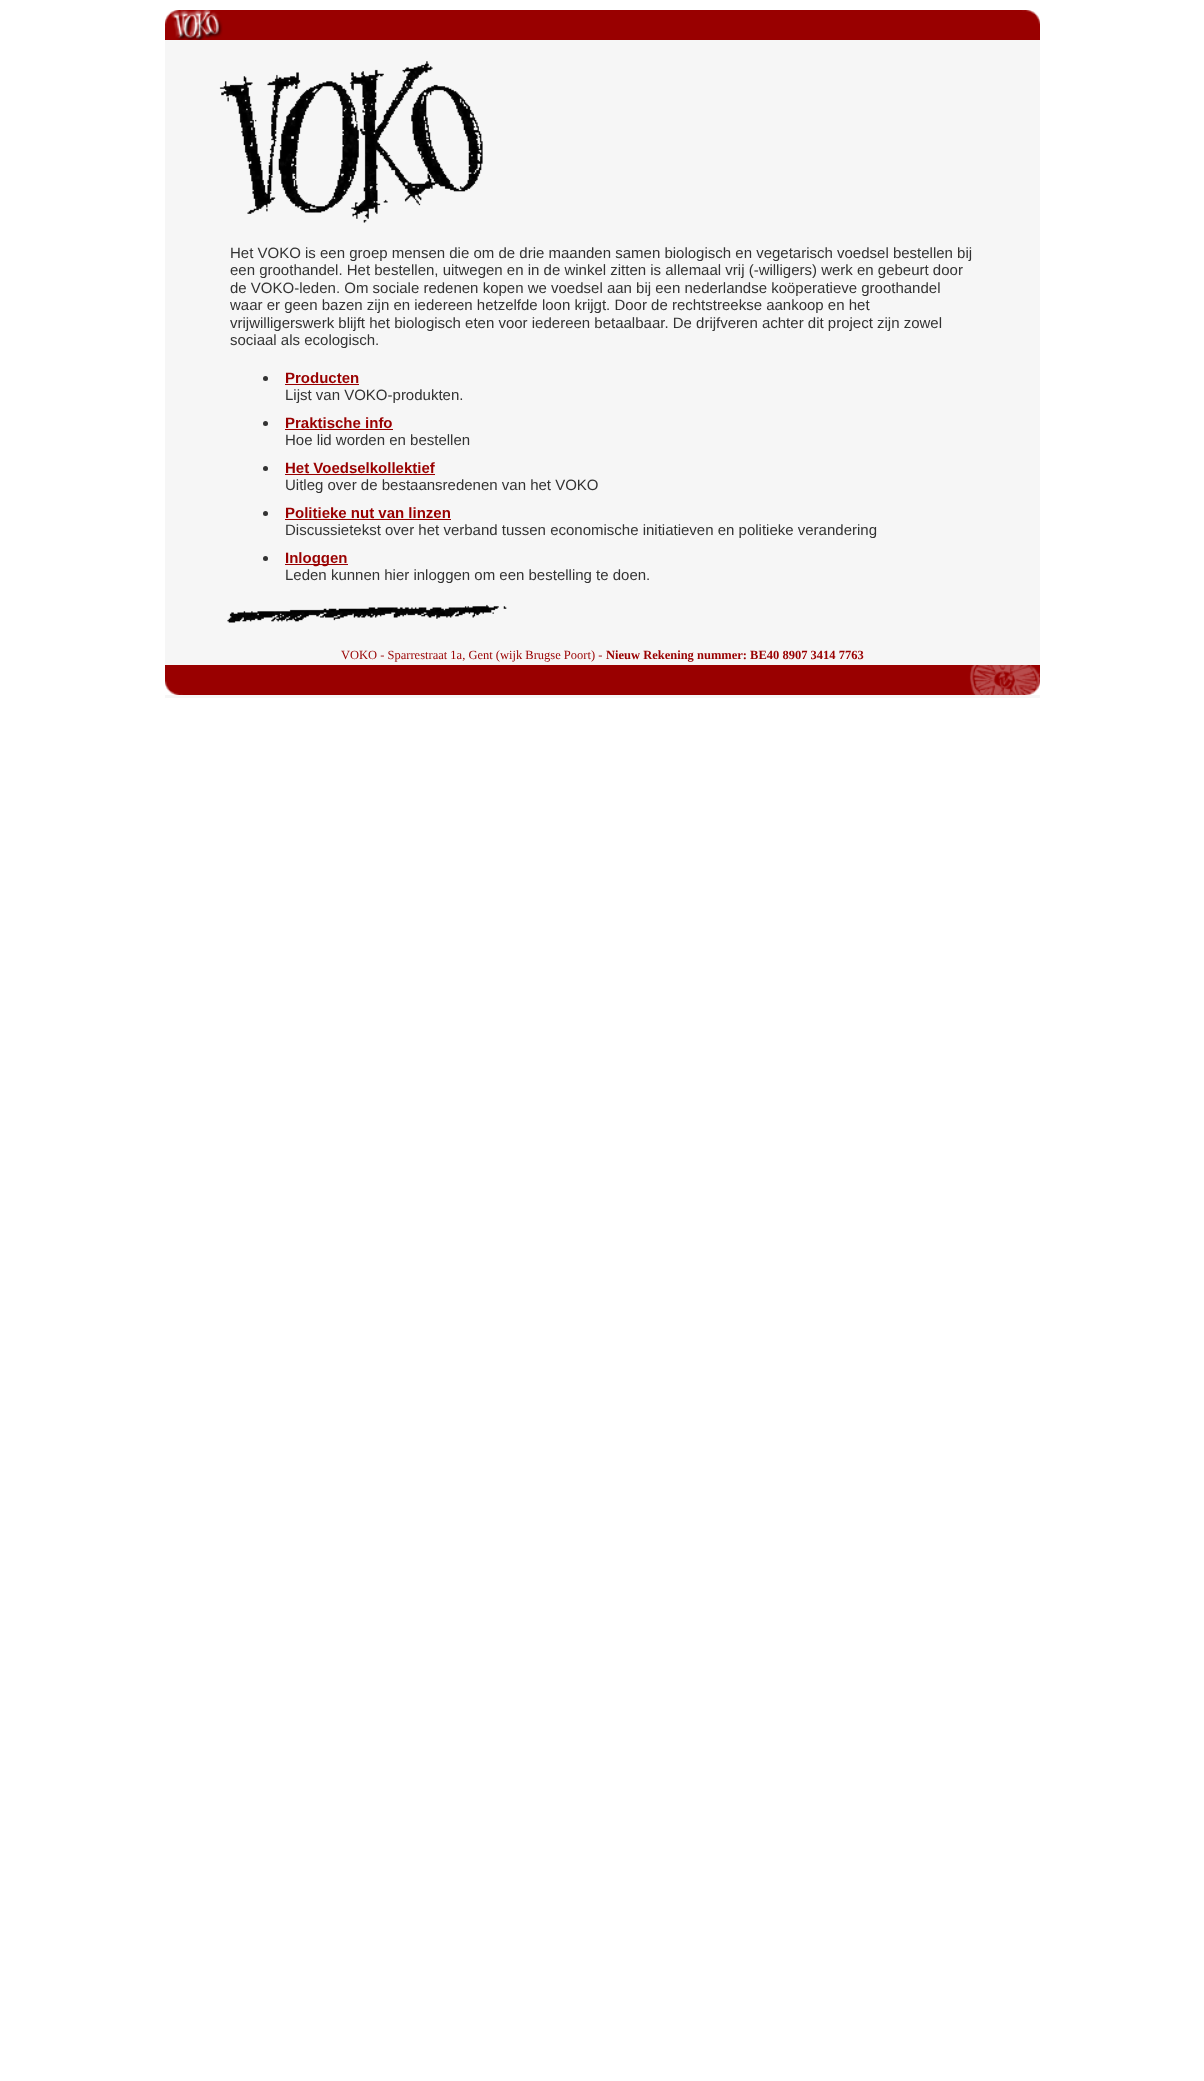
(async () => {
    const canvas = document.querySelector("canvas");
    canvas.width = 1204;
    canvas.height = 2081;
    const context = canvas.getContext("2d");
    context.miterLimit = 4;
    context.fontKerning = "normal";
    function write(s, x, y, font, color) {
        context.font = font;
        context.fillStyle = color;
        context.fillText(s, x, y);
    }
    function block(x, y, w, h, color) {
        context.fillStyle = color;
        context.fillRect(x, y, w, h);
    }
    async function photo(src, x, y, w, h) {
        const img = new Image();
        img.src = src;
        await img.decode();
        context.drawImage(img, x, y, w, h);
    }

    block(0, 0, 1204, 2081, "rgb(255, 255, 255)");
    block(165, 40, 875, 625, "rgb(246, 246, 246)");
    await photo("media/1.png", 165, 10, 875, 30);
    await photo("media/2.png", 219, 61, 264, 162);
    write("Het VOKO is een groep mensen die om de drie maanden samen biologisch en vegetarisch voedsel bestellen bij", 230, 258, "15px Liberation Sans", "rgb(51, 51, 51)");
    write("een groothandel. Het bestellen, uitwegen en in de winkel zitten is allemaal vrij (-willigers) werk en gebeurt door", 230, 275, "15px Liberation Sans", "rgb(51, 51, 51)");
    write("de VOKO-leden. Om sociale redenen kopen we voedsel aan bij een nederlandse koöperatieve groothandel", 230, 293, "15px Liberation Sans", "rgb(51, 51, 51)");
    write("waar er geen bazen zijn en iedereen hetzelfde loon krijgt. Door de rechtstreekse aankoop en het", 230, 310, "15px Liberation Sans", "rgb(51, 51, 51)");
    write("vrijwilligerswerk blijft het biologisch eten voor iedereen betaalbaar. De drijfveren achter dit project zijn zowel", 230, 328, "15px Liberation Sans", "rgb(51, 51, 51)");
    write("sociaal als ecologisch.", 230, 345, "15px Liberation Sans", "rgb(51, 51, 51)");
    context.beginPath();
    context.arc(265.5, 378.5, 2.5, 0, Math.PI * 2);
    context.fill();
    write("Producten", 285, 383, "bold 15px Liberation Sans", "rgb(153, 0, 0)");
    block(285, 384, 74, 1, "rgb(153, 0, 0)");
    write("Lijst van VOKO-produkten.", 285, 400, "15px Liberation Sans", "rgb(51, 51, 51)");
    context.beginPath();
    context.arc(265.5, 423.5, 2.5, 0, Math.PI * 2);
    context.fill();
    write("Praktische info", 285, 428, "bold 15px Liberation Sans", "rgb(153, 0, 0)");
    block(285, 429, 108, 1, "rgb(153, 0, 0)");
    write("Hoe lid worden en bestellen", 285, 445, "15px Liberation Sans", "rgb(51, 51, 51)");
    context.beginPath();
    context.arc(265.5, 468.5, 2.5, 0, Math.PI * 2);
    context.fill();
    write("Het Voedselkollektief", 285, 473, "bold 15px Liberation Sans", "rgb(153, 0, 0)");
    block(285, 474, 150, 1, "rgb(153, 0, 0)");
    write("Uitleg over de bestaansredenen van het VOKO", 285, 490, "15px Liberation Sans", "rgb(51, 51, 51)");
    context.beginPath();
    context.arc(265.5, 513.5, 2.5, 0, Math.PI * 2);
    context.fill();
    write("Politieke nut van linzen", 285, 518, "bold 15px Liberation Sans", "rgb(153, 0, 0)");
    block(285, 519, 166, 1, "rgb(153, 0, 0)");
    write("Discussietekst over het verband tussen economische initiatieven en politieke verandering", 285, 535, "15px Liberation Sans", "rgb(51, 51, 51)");
    context.beginPath();
    context.arc(265.5, 558.5, 2.5, 0, Math.PI * 2);
    context.fill();
    block(285, 564, 63, 1, "rgb(153, 0, 0)");
    write("Inloggen", 285, 563, "bold 15px Liberation Sans", "rgb(153, 0, 0)");
    write("Leden kunnen hier inloggen om een bestelling te doen.", 285, 580, "15px Liberation Sans", "rgb(51, 51, 51)");
    await photo("media/3.png", 227, 604, 280, 19);
    write("VOKO - Sparrestraat 1a, Gent (wijk Brugse Poort) -", 341, 659, "12.5px Liberation Serif", "rgb(153, 0, 0)");
    write("Nieuw Rekening nummer: BE40 8907 3414 7763", 606, 659, "bold 12.5px Liberation Serif", "rgb(153, 0, 0)");
    block(165, 695, 875, 3, "rgb(246, 246, 246)");
    await photo("media/4.png", 165, 665, 875, 30);
})();
